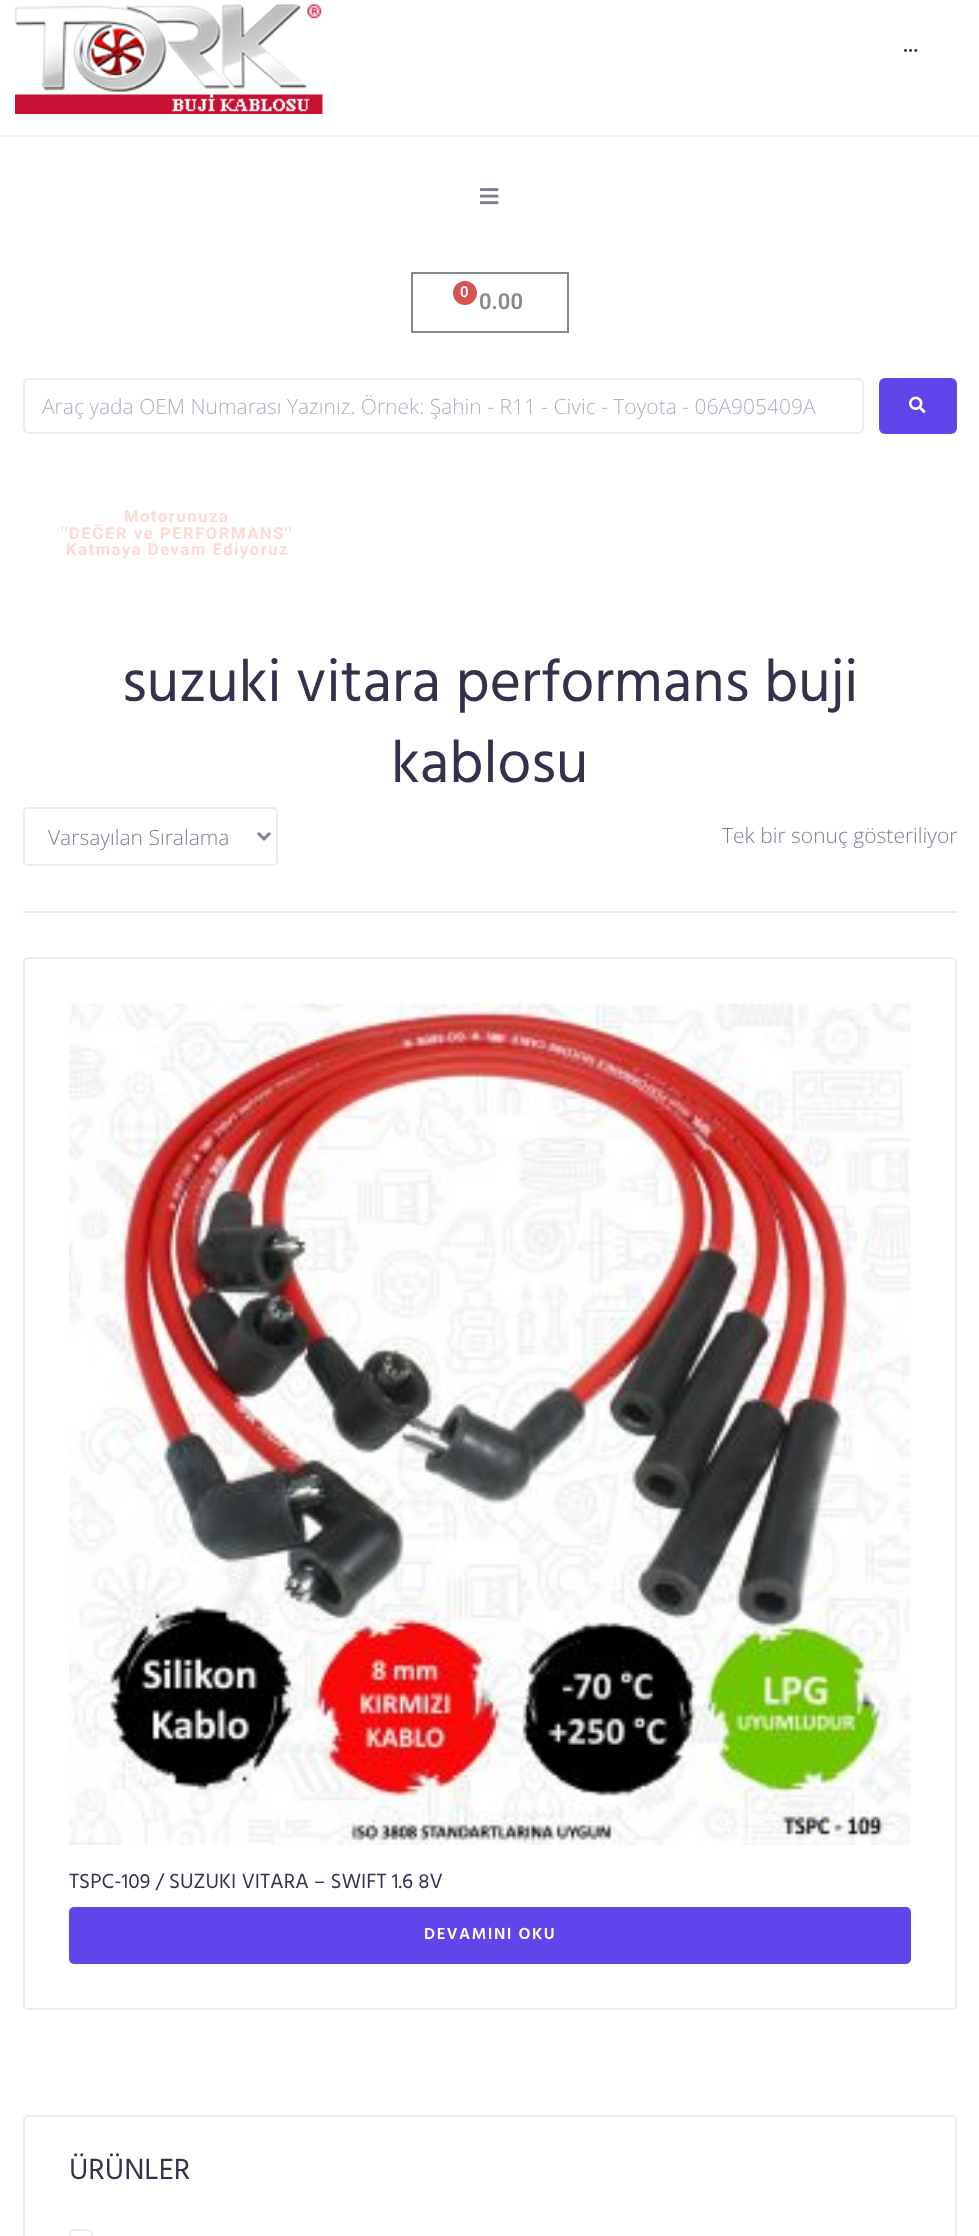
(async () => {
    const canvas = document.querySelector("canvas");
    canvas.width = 979;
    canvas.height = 2236;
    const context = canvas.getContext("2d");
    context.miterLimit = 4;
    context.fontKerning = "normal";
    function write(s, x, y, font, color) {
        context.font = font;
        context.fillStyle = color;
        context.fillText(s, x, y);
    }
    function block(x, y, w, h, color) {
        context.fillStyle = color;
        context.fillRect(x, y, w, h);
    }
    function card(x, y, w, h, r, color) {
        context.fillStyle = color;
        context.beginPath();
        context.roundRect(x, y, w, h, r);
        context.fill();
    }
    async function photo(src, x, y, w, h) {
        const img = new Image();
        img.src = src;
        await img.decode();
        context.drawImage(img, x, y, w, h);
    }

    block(0, 0, 979, 2236, "rgb(255, 255, 255)");
    block(0, 135, 979, 2, "rgb(239, 239, 241)");
    await photo("media/1.png", 15, 4, 308, 110);
    write("···", 903, 56, "600 20px Hind", "rgb(52, 49, 75)");
    await photo("media/2.png", 480, 188, 19, 17);
    context.strokeStyle = "rgb(129, 138, 145)";
    context.lineWidth = 2;
    context.strokeRect(412, 273, 156, 59);
    context.fillStyle = "rgb(217, 83, 79)";
    context.beginPath();
    context.arc(465, 293, 12, 0, Math.PI * 2);
    context.fill();
    write("0", 460, 297, "600 15px Roboto", "rgb(255, 255, 255)");
    write("0.00", 479, 309, "600 22px Roboto", "rgb(129, 138, 145)");
    context.beginPath();
    context.roundRect(24, 379, 839, 54, 5);
    context.strokeStyle = "rgb(235, 236, 237)";
    context.stroke();
    write("Araç yada OEM Numarası Yazınız. Örnek: Şahin - R11 - Civic - Toyota - 06A905409A", 42, 414, "300 21px Open Sans", "rgb(176, 174, 190)");
    card(879, 378, 78, 56, 6, "rgb(95, 69, 234)");
    await photo("media/3.png", 909, 396, 17, 17);
    context.letterSpacing = "1.6px";
    write("Motorunuza", 124, 522, "bold 16.5px Roboto", "rgb(255, 217, 214)");
    write("''DEĞER ve PERFORMANS''", 61, 539, "bold 16.5px Roboto", "rgb(255, 217, 214)");
    write("Katmaya Devam Ediyoruz", 66, 555, "bold 16.5px Roboto", "rgb(255, 217, 214)");
    context.letterSpacing = "0px";
    write("suzuki vitara performans buji", 122, 701, "60px Hind", "rgb(52, 49, 75)");
    write("kablosu", 391, 782, "60px Hind", "rgb(52, 49, 75)");
    block(23, 911, 934, 2, "rgb(235, 236, 237)");
    context.beginPath();
    context.roundRect(24, 808, 253, 57, 4);
    context.stroke();
    context.beginPath();
    context.moveTo(258, 833);
    context.lineTo(264, 839);
    context.lineTo(270, 833);
    context.strokeStyle = "rgb(127, 125, 142)";
    context.lineWidth = 3;
    context.stroke();
    write("Varsayılan Sıralama", 48, 845, "300 21px Open Sans", "rgb(127, 125, 142)");
    write("Tek bir sonuç gösteriliyor", 722, 843, "300 21px Open Sans", "rgb(127, 125, 142)");
    context.beginPath();
    context.roundRect(24, 958, 932, 1051, 4);
    context.strokeStyle = "rgb(235, 236, 237)";
    context.lineWidth = 2;
    context.stroke();
    await photo("media/4.png", 69, 1003, 842, 842);
    write("TSPC-109 / SUZUKI VITARA – SWIFT 1.6 8V", 69, 1888, "21px Hind", "rgb(52, 49, 75)");
    card(69, 1907, 842, 57, 5, "rgb(95, 69, 234)");
    context.letterSpacing = "1.5px";
    write("DEVAMINI OKU", 424, 1939, "600 16.5px Hind", "rgb(255, 255, 255)");
    context.beginPath();
    context.roundRect(24, 2116, 932, 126, 4);
    context.stroke();
    context.letterSpacing = "0px";
    write("ÜRÜNLER", 69, 2179, "30px Hind", "rgb(52, 49, 75)");
    context.beginPath();
    context.roundRect(70, 2230, 22, 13, 5);
    context.stroke();
})();
